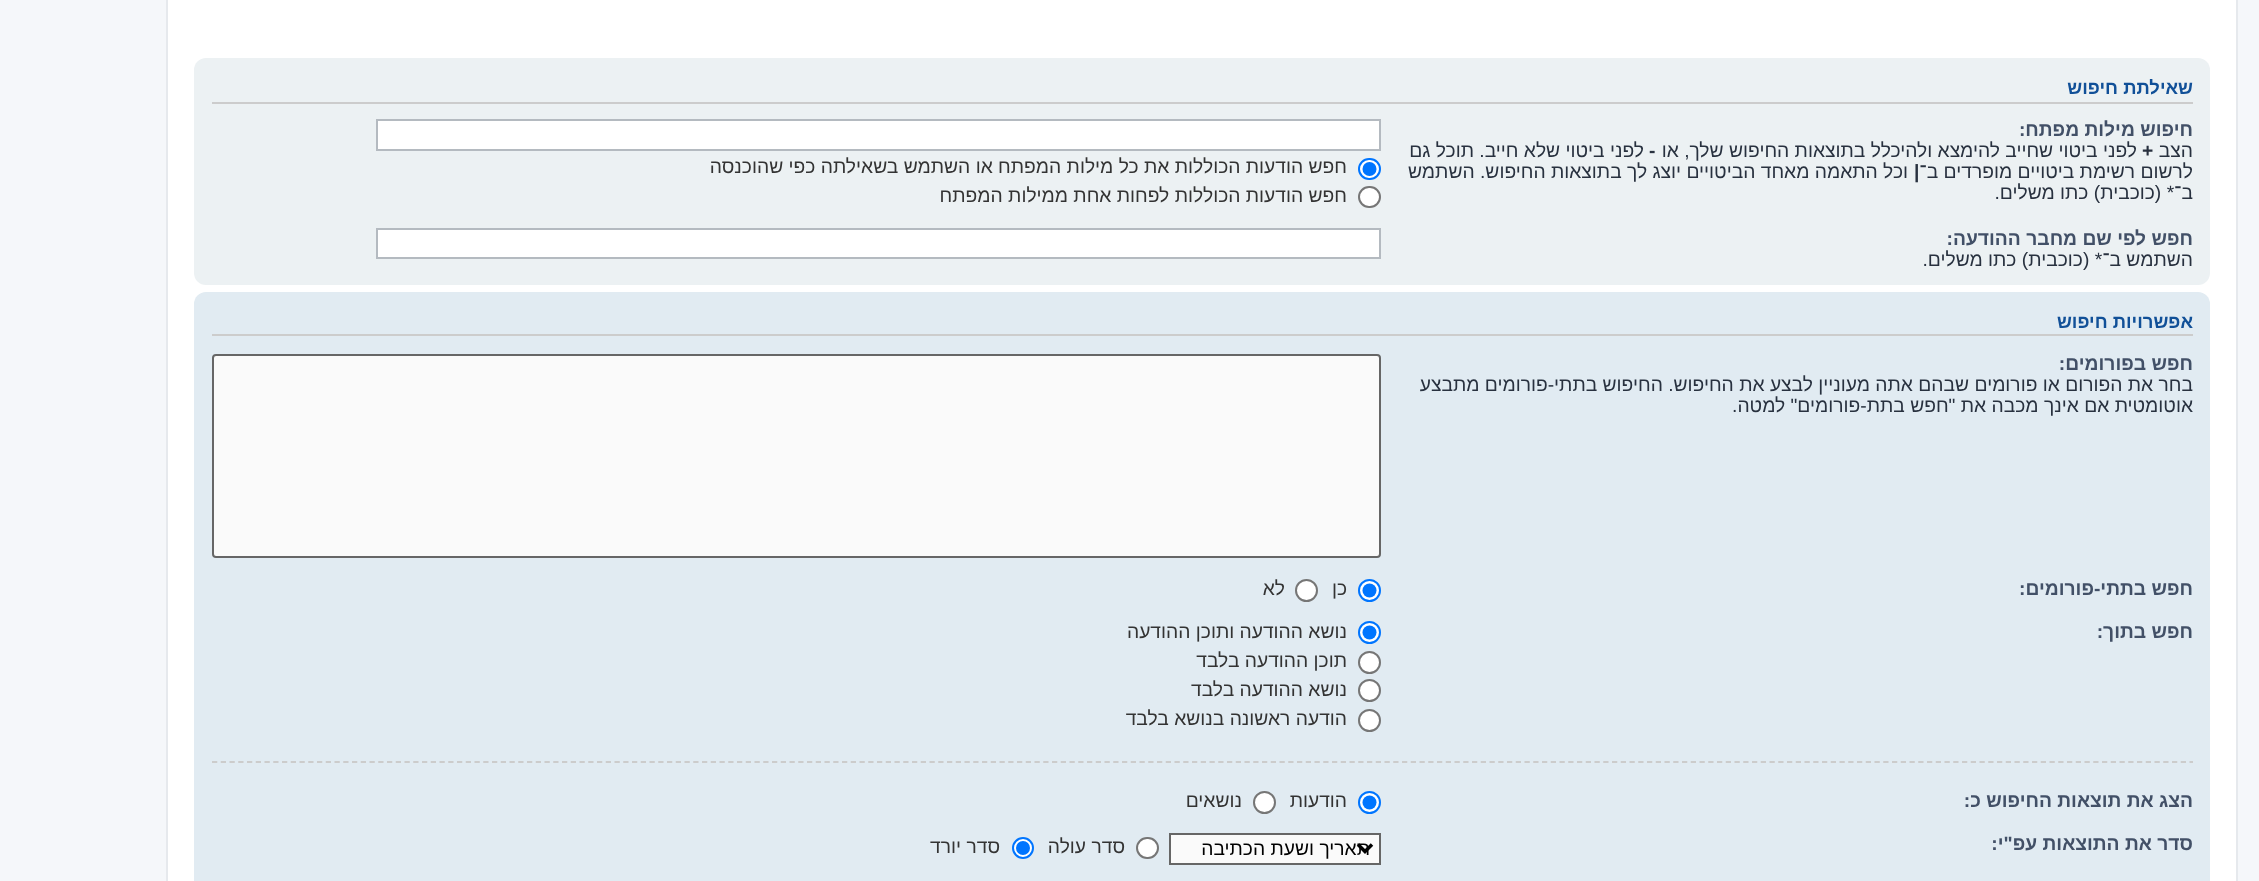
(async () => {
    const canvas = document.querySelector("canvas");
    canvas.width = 2259;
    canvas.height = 881;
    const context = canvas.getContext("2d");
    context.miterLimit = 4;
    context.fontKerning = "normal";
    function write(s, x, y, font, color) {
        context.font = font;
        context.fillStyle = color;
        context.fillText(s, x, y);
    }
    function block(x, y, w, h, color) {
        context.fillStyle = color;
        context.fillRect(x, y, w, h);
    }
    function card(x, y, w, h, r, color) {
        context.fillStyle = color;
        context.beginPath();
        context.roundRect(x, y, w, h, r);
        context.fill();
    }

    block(0, 0, 2259, 881, "rgb(245, 247, 250)");
    context.fillStyle = "rgb(255, 255, 255)";
    context.beginPath();
    context.rect(167, -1, 2070, 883);
    context.fill();
    context.strokeStyle = "rgb(230, 233, 237)";
    context.lineWidth = 2;
    context.stroke();
    card(194, 58, 2016, 227, 12, "rgb(236, 241, 243)");
    block(212, 102, 1981, 2, "rgb(204, 204, 204)");
    context.direction = "rtl";
    write("שאילתת חיפוש", 2193, 94, "bold 18.5px Liberation Sans", "rgb(17, 80, 152)");
    write("חיפוש מילות מפתח:", 2193, 136, "bold 19.25px Liberation Sans", "rgb(66, 80, 103)");
    write("הצב", 2193, 157, "19.25px Liberation Sans", "rgb(40, 49, 63)");
    context.direction = "ltr";
    write("+", 2142, 157, "bold 19.25px Liberation Sans", "rgb(40, 49, 63)");
    context.direction = "rtl";
    write("לפני ביטוי שחייב להימצא ולהיכלל בתוצאות החיפוש שלך, או", 2137, 157, "19.25px Liberation Sans", "rgb(40, 49, 63)");
    context.direction = "ltr";
    write("-", 1649, 157, "bold 19.25px Liberation Sans", "rgb(40, 49, 63)");
    context.direction = "rtl";
    write("לפני ביטוי שלא חייב. תוכל גם", 1644, 157, "19.25px Liberation Sans", "rgb(40, 49, 63)");
    write("לרשום רשימת ביטויים מופרדים ב־", 2193, 178, "19.25px Liberation Sans", "rgb(40, 49, 63)");
    context.direction = "ltr";
    write("|", 1914, 178, "bold 19.25px Liberation Sans", "rgb(40, 49, 63)");
    context.direction = "rtl";
    write("וכל התאמה מאחד הביטויים יוצג לך בתוצאות החיפוש. השתמש", 1908, 178, "19.25px Liberation Sans", "rgb(40, 49, 63)");
    write("ב־* (כוכבית) כתו משלים.", 2193, 199, "19.25px Liberation Sans", "rgb(40, 49, 63)");
    context.fillStyle = "rgb(255, 255, 255)";
    context.beginPath();
    context.rect(377, 120, 1003, 30);
    context.fill();
    context.strokeStyle = "rgb(180, 186, 192)";
    context.stroke();
    context.beginPath();
    context.roundRect(1359, 159, 21, 20, 10);
    context.fill();
    context.strokeStyle = "rgb(0, 117, 255)";
    context.stroke();
    context.fillStyle = "rgb(0, 117, 255)";
    context.beginPath();
    context.arc(1369.5, 169, 7, 0, Math.PI * 2);
    context.fill();
    write("חפש הודעות הכוללות את כל מילות המפתח או השתמש בשאילתה כפי שהוכנסה", 1347, 173, "19.25px Liberation Sans", "rgb(51, 51, 51)");
    context.fillStyle = "rgb(255, 255, 255)";
    context.beginPath();
    context.roundRect(1359, 187, 21, 20, 10);
    context.fill();
    context.strokeStyle = "rgb(118, 118, 118)";
    context.stroke();
    write("חפש הודעות הכוללות לפחות אחת ממילות המפתח", 1347, 202, "19.25px Liberation Sans", "rgb(51, 51, 51)");
    write("חפש לפי שם מחבר ההודעה:", 2193, 245, "bold 19.25px Liberation Sans", "rgb(66, 80, 103)");
    write("השתמש ב־* (כוכבית) כתו משלים.", 2193, 266, "19.25px Liberation Sans", "rgb(40, 49, 63)");
    context.fillStyle = "rgb(255, 255, 255)";
    context.beginPath();
    context.rect(377, 229, 1003, 29);
    context.fill();
    context.strokeStyle = "rgb(180, 186, 192)";
    context.stroke();
    card(194, 292, 2016, 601, 12, "rgb(225, 235, 242)");
    block(212, 334, 1981, 2, "rgb(204, 204, 204)");
    write("אפשרויות חיפוש", 2193, 328, "bold 18.5px Liberation Sans", "rgb(17, 80, 152)");
    write("חפש בפורומים:", 2193, 370, "bold 19.25px Liberation Sans", "rgb(66, 80, 103)");
    write("בחר את הפורום או פורומים שבהם אתה מעוניין לבצע את החיפוש. החיפוש בתתי-פורומים מתבצע", 2193, 391, "19.25px Liberation Sans", "rgb(40, 49, 63)");
    write("אוטומטית אם אינך מכבה את \"חפש בתת-פורומים\" למטה.", 2193, 412, "19.25px Liberation Sans", "rgb(40, 49, 63)");
    context.fillStyle = "rgb(250, 250, 250)";
    context.beginPath();
    context.roundRect(213, 355, 1167, 202, 3);
    context.fill();
    context.strokeStyle = "rgb(102, 102, 102)";
    context.stroke();
    write("חפש בתתי-פורומים:", 2193, 595, "bold 19.25px Liberation Sans", "rgb(66, 80, 103)");
    context.fillStyle = "rgb(255, 255, 255)";
    context.beginPath();
    context.arc(1369.5, 590.5, 10.5, 0, Math.PI * 2);
    context.fill();
    context.strokeStyle = "rgb(0, 117, 255)";
    context.stroke();
    context.fillStyle = "rgb(0, 117, 255)";
    context.beginPath();
    context.arc(1369.5, 590.5, 7, 0, Math.PI * 2);
    context.fill();
    write("כן", 1347, 595, "19.25px Liberation Sans", "rgb(51, 51, 51)");
    context.fillStyle = "rgb(255, 255, 255)";
    context.beginPath();
    context.arc(1306.5, 590.5, 10.5, 0, Math.PI * 2);
    context.fill();
    context.strokeStyle = "rgb(118, 118, 118)";
    context.stroke();
    write("לא", 1285, 595, "19.25px Liberation Sans", "rgb(51, 51, 51)");
    write("חפש בתוך:", 2193, 638, "bold 19.25px Liberation Sans", "rgb(66, 80, 103)");
    context.fillStyle = "rgb(255, 255, 255)";
    context.beginPath();
    context.arc(1369.5, 632.5, 10.5, 0, Math.PI * 2);
    context.fill();
    context.strokeStyle = "rgb(0, 117, 255)";
    context.stroke();
    context.fillStyle = "rgb(0, 117, 255)";
    context.beginPath();
    context.arc(1369.5, 632.5, 7, 0, Math.PI * 2);
    context.fill();
    write("נושא ההודעה ותוכן ההודעה", 1347, 638, "19.25px Liberation Sans", "rgb(51, 51, 51)");
    context.fillStyle = "rgb(255, 255, 255)";
    context.beginPath();
    context.arc(1369.5, 662.5, 10.5, 0, Math.PI * 2);
    context.fill();
    context.strokeStyle = "rgb(118, 118, 118)";
    context.stroke();
    write("תוכן ההודעה בלבד", 1347, 667, "19.25px Liberation Sans", "rgb(51, 51, 51)");
    context.fillStyle = "rgb(255, 255, 255)";
    context.beginPath();
    context.arc(1369.5, 690.5, 10.5, 0, Math.PI * 2);
    context.fill();
    context.stroke();
    write("נושא ההודעה בלבד", 1347, 696, "19.25px Liberation Sans", "rgb(51, 51, 51)");
    context.fillStyle = "rgb(255, 255, 255)";
    context.beginPath();
    context.arc(1369.5, 720.5, 10.5, 0, Math.PI * 2);
    context.fill();
    context.stroke();
    write("הודעה ראשונה בנושא בלבד", 1347, 725, "19.25px Liberation Sans", "rgb(51, 51, 51)");
    context.beginPath();
    context.moveTo(212, 762);
    context.lineTo(2193, 762);
    context.strokeStyle = "rgb(204, 204, 204)";
    context.lineWidth = 1.8;
    context.setLineDash([5.25, 3.5]);
    context.stroke();
    write("הצג את תוצאות החיפוש כ:", 2193, 807, "bold 19.25px Liberation Sans", "rgb(66, 80, 103)");
    context.fillStyle = "rgb(255, 255, 255)";
    context.beginPath();
    context.arc(1369.5, 802.5, 10.5, 0, Math.PI * 2);
    context.fill();
    context.strokeStyle = "rgb(0, 117, 255)";
    context.lineWidth = 2;
    context.setLineDash([]);
    context.stroke();
    context.fillStyle = "rgb(0, 117, 255)";
    context.beginPath();
    context.arc(1369.5, 802.5, 7, 0, Math.PI * 2);
    context.fill();
    write("הודעות", 1347, 807, "19.25px Liberation Sans", "rgb(51, 51, 51)");
    context.fillStyle = "rgb(255, 255, 255)";
    context.beginPath();
    context.arc(1264.5, 802.5, 10.5, 0, Math.PI * 2);
    context.fill();
    context.strokeStyle = "rgb(118, 118, 118)";
    context.stroke();
    write("נושאים", 1242, 807, "19.25px Liberation Sans", "rgb(51, 51, 51)");
    write("סדר את התוצאות עפ\"י:", 2193, 850, "bold 19.25px Liberation Sans", "rgb(66, 80, 103)");
    context.fillStyle = "rgb(250, 250, 250)";
    context.beginPath();
    context.rect(1170, 834, 210, 30);
    context.fill();
    context.strokeStyle = "rgb(102, 102, 102)";
    context.stroke();
    context.beginPath();
    context.moveTo(1358, 844.5);
    context.lineTo(1365, 851.5);
    context.lineTo(1372, 844.5);
    context.strokeStyle = "rgb(0, 0, 0)";
    context.lineWidth = 3.5;
    context.stroke();
    write("תאריך ושעת הכתיבה", 1370, 855, "19.25px Liberation Sans", "rgb(0, 0, 0)");
    context.fillStyle = "rgb(255, 255, 255)";
    context.beginPath();
    context.roundRect(1137, 838, 21, 20, 10);
    context.fill();
    context.strokeStyle = "rgb(118, 118, 118)";
    context.lineWidth = 2;
    context.stroke();
    write("סדר עולה", 1125, 853, "19.25px Liberation Sans", "rgb(51, 51, 51)");
    context.fillStyle = "rgb(255, 255, 255)";
    context.beginPath();
    context.arc(1023, 848, 10, 0, Math.PI * 2);
    context.fill();
    context.strokeStyle = "rgb(0, 117, 255)";
    context.stroke();
    context.fillStyle = "rgb(0, 117, 255)";
    context.beginPath();
    context.arc(1023, 848, 7, 0, Math.PI * 2);
    context.fill();
    write("סדר יורד", 1000, 853, "19.25px Liberation Sans", "rgb(51, 51, 51)");
})();
